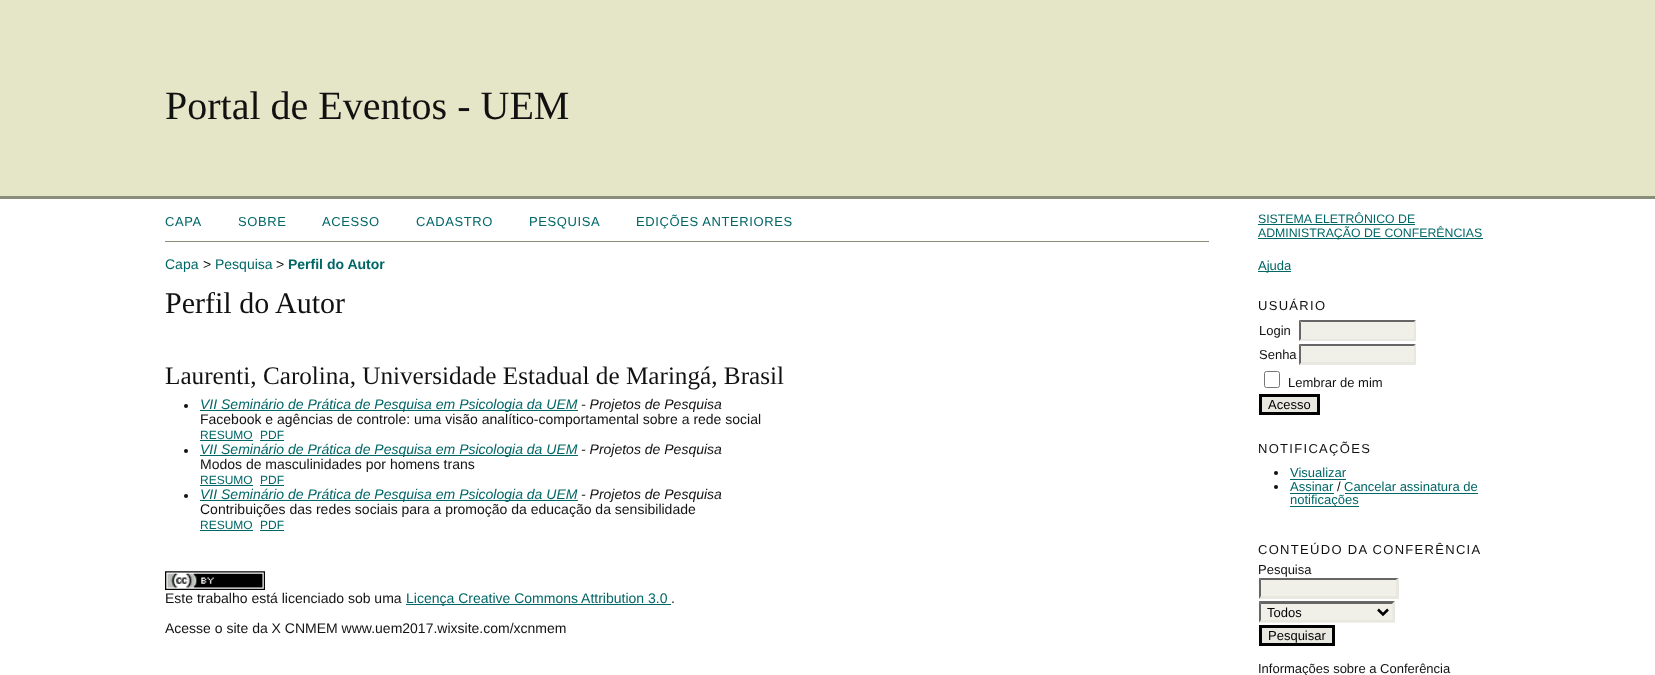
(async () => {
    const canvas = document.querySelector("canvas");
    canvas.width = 1655;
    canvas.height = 675;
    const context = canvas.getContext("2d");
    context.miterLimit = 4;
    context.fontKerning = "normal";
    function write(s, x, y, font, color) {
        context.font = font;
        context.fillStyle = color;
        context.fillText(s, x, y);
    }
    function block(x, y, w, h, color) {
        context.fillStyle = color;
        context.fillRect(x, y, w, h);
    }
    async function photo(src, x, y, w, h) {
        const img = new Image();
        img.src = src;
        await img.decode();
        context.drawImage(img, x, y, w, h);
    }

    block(0, 0, 1655, 675, "rgb(255, 255, 255)");
    block(0, 0, 1655, 196, "rgb(229, 229, 199)");
    block(0, 196, 1655, 3, "rgb(137, 142, 121)");
    write("Portal de Eventos - UEM", 165, 119, "40px Liberation Serif", "rgb(17, 17, 17)");
    block(165, 241, 1044, 1, "rgb(137, 142, 121)");
    context.letterSpacing = "0.6px";
    write("CAPA", 165, 226, "13px Liberation Sans", "rgb(0, 102, 102)");
    write("SOBRE", 238, 226, "13px Liberation Sans", "rgb(0, 102, 102)");
    write("ACESSO", 322, 226, "13px Liberation Sans", "rgb(0, 102, 102)");
    write("CADASTRO", 416, 226, "13px Liberation Sans", "rgb(0, 102, 102)");
    write("PESQUISA", 529, 226, "13px Liberation Sans", "rgb(0, 102, 102)");
    write("EDIÇÕES ANTERIORES", 636, 226, "13px Liberation Sans", "rgb(0, 102, 102)");
    context.letterSpacing = "0px";
    write("Capa", 165, 269, "14px Liberation Sans", "rgb(0, 102, 102)");
    write(">", 203, 269, "14px Liberation Sans", "rgb(17, 17, 17)");
    write("Pesquisa", 215, 269, "14px Liberation Sans", "rgb(0, 102, 102)");
    write(">", 276, 269, "14px Liberation Sans", "rgb(17, 17, 17)");
    write("Perfil do Autor", 288, 269, "bold 14px Liberation Sans", "rgb(0, 102, 102)");
    write("Perfil do Autor", 165, 313, "30px Liberation Serif", "rgb(17, 17, 17)");
    write("Laurenti, Carolina, Universidade Estadual de Maringá, Brasil", 165, 384, "25.2px Liberation Serif", "rgb(17, 17, 17)");
    context.beginPath();
    context.arc(186, 406, 2, 0, Math.PI * 2);
    context.fill();
    block(200, 410, 378, 1, "rgb(0, 102, 102)");
    write("VII Seminário de Prática de Pesquisa em Psicologia da UEM", 200, 409, "italic 14px Liberation Sans", "rgb(0, 102, 102)");
    write("- Projetos de Pesquisa", 581, 409, "italic 14px Liberation Sans", "rgb(17, 17, 17)");
    write("Facebook e agências de controle: uma visão analítico-comportamental sobre a rede social", 200, 424, "14px Liberation Sans", "rgb(17, 17, 17)");
    write("RESUMO", 200, 439, "12px Liberation Sans", "rgb(0, 102, 102)");
    block(200, 440, 53, 1, "rgb(0, 102, 102)");
    write("PDF", 260, 439, "12px Liberation Sans", "rgb(0, 102, 102)");
    block(260, 440, 24, 1, "rgb(0, 102, 102)");
    context.fillStyle = "rgb(17, 17, 17)";
    context.beginPath();
    context.arc(186, 451, 2, 0, Math.PI * 2);
    context.fill();
    block(200, 455, 378, 1, "rgb(0, 102, 102)");
    write("VII Seminário de Prática de Pesquisa em Psicologia da UEM", 200, 454, "italic 14px Liberation Sans", "rgb(0, 102, 102)");
    write("- Projetos de Pesquisa", 581, 454, "italic 14px Liberation Sans", "rgb(17, 17, 17)");
    write("Modos de masculinidades por homens trans", 200, 469, "14px Liberation Sans", "rgb(17, 17, 17)");
    write("RESUMO", 200, 484, "12px Liberation Sans", "rgb(0, 102, 102)");
    block(200, 485, 53, 1, "rgb(0, 102, 102)");
    write("PDF", 260, 484, "12px Liberation Sans", "rgb(0, 102, 102)");
    block(260, 485, 24, 1, "rgb(0, 102, 102)");
    context.fillStyle = "rgb(17, 17, 17)";
    context.beginPath();
    context.arc(186, 496, 2, 0, Math.PI * 2);
    context.fill();
    block(200, 500, 378, 1, "rgb(0, 102, 102)");
    write("VII Seminário de Prática de Pesquisa em Psicologia da UEM", 200, 499, "italic 14px Liberation Sans", "rgb(0, 102, 102)");
    write("- Projetos de Pesquisa", 581, 499, "italic 14px Liberation Sans", "rgb(17, 17, 17)");
    write("Contribuições das redes sociais para a promoção da educação da sensibilidade", 200, 514, "14px Liberation Sans", "rgb(17, 17, 17)");
    write("RESUMO", 200, 529, "12px Liberation Sans", "rgb(0, 102, 102)");
    block(200, 530, 53, 1, "rgb(0, 102, 102)");
    write("PDF", 260, 529, "12px Liberation Sans", "rgb(0, 102, 102)");
    block(260, 530, 24, 1, "rgb(0, 102, 102)");
    await photo("media/1.png", 165, 571, 100, 19);
    write("Este trabalho está licenciado sob uma", 165, 603, "14px Liberation Sans", "rgb(17, 17, 17)");
    block(406, 604, 265, 1, "rgb(0, 102, 102)");
    write("Licença Creative Commons Attribution 3.0", 406, 603, "14px Liberation Sans", "rgb(0, 102, 102)");
    write(".", 671, 603, "14px Liberation Sans", "rgb(17, 17, 17)");
    write("Acesse o site da X CNMEM www.uem2017.wixsite.com/xcnmem", 165, 633, "14px Liberation Sans", "rgb(17, 17, 17)");
    write("SISTEMA ELETRÔNICO DE", 1258, 223, "12.3px Liberation Sans", "rgb(0, 102, 102)");
    block(1258, 224, 157, 1, "rgb(0, 102, 102)");
    block(1258, 238, 225, 1, "rgb(0, 102, 102)");
    write("ADMINISTRAÇÃO DE CONFERÊNCIAS", 1258, 237, "12.3px Liberation Sans", "rgb(0, 102, 102)");
    block(1258, 271, 33, 1, "rgb(0, 102, 102)");
    write("Ajuda", 1258, 270, "13px Liberation Sans", "rgb(0, 102, 102)");
    context.letterSpacing = "1.3px";
    write("USUÁRIO", 1258, 310, "13px Liberation Sans", "rgb(17, 17, 17)");
    context.letterSpacing = "0px";
    write("Login", 1259, 335, "13px Liberation Sans", "rgb(17, 17, 17)");
    block(1299, 320, 117, 21, "rgb(240, 240, 232)");
    context.fillStyle = "rgb(102, 102, 102)";
    context.beginPath();
    context.moveTo(1299, 320);
    context.lineTo(1416, 320);
    context.lineTo(1414, 322);
    context.lineTo(1301, 322);
    context.closePath();
    context.fill();
    context.fillStyle = "rgb(232, 232, 225)";
    context.beginPath();
    context.moveTo(1416, 320);
    context.lineTo(1416, 341);
    context.lineTo(1414, 339);
    context.lineTo(1414, 322.5);
    context.closePath();
    context.fill();
    context.beginPath();
    context.moveTo(1416, 341);
    context.lineTo(1299, 341);
    context.lineTo(1301, 339);
    context.lineTo(1414, 339);
    context.closePath();
    context.fill();
    context.fillStyle = "rgb(102, 102, 102)";
    context.beginPath();
    context.moveTo(1299, 341);
    context.lineTo(1299, 320);
    context.lineTo(1301, 322.5);
    context.lineTo(1301, 339);
    context.closePath();
    context.fill();
    write("Senha", 1259, 359, "13px Liberation Sans", "rgb(17, 17, 17)");
    block(1299, 344, 117, 21, "rgb(240, 240, 232)");
    context.fillStyle = "rgb(102, 102, 102)";
    context.beginPath();
    context.moveTo(1299, 344);
    context.lineTo(1416, 344);
    context.lineTo(1414, 346);
    context.lineTo(1301, 346);
    context.closePath();
    context.fill();
    context.fillStyle = "rgb(232, 232, 225)";
    context.beginPath();
    context.moveTo(1416, 344);
    context.lineTo(1416, 365);
    context.lineTo(1414, 362.5);
    context.lineTo(1414, 346);
    context.closePath();
    context.fill();
    context.beginPath();
    context.moveTo(1416, 365);
    context.lineTo(1299, 365);
    context.lineTo(1301, 362);
    context.lineTo(1414, 362);
    context.closePath();
    context.fill();
    context.fillStyle = "rgb(102, 102, 102)";
    context.beginPath();
    context.moveTo(1299, 365);
    context.lineTo(1299, 344);
    context.lineTo(1301, 346);
    context.lineTo(1301, 362.5);
    context.closePath();
    context.fill();
    context.beginPath();
    context.roundRect(1264.5, 371.5, 15, 16, 2);
    context.strokeStyle = "rgb(118, 118, 118)";
    context.stroke();
    write("Lembrar de mim", 1288, 387, "13px Liberation Sans", "rgb(17, 17, 17)");
    context.fillStyle = "rgb(232, 232, 225)";
    context.beginPath();
    context.rect(1260.5, 395.5, 58, 18);
    context.fill();
    context.strokeStyle = "rgb(0, 0, 0)";
    context.lineWidth = 3;
    context.stroke();
    write("Acesso", 1268, 409, "13px Liberation Sans", "rgb(0, 0, 0)");
    context.letterSpacing = "1.3px";
    write("NOTIFICAÇÕES", 1258, 453, "13px Liberation Sans", "rgb(17, 17, 17)");
    context.beginPath();
    context.arc(1276, 473, 2, 0, Math.PI * 2);
    context.fill();
    context.letterSpacing = "0px";
    write("Visualizar", 1290, 477, "13px Liberation Sans", "rgb(0, 102, 102)");
    block(1290, 479, 56, 1, "rgb(0, 102, 102)");
    context.fillStyle = "rgb(17, 17, 17)";
    context.beginPath();
    context.arc(1276, 487, 2, 0, Math.PI * 2);
    context.fill();
    write("Assinar", 1290, 491, "13px Liberation Sans", "rgb(0, 102, 102)");
    block(1290, 493, 44, 1, "rgb(0, 102, 102)");
    write("/", 1337, 491, "13px Liberation Sans", "rgb(17, 17, 17)");
    write("Cancelar assinatura de", 1344, 491, "13px Liberation Sans", "rgb(0, 102, 102)");
    block(1345, 493, 133, 1, "rgb(0, 102, 102)");
    block(1290, 506, 69, 1, "rgb(0, 102, 102)");
    write("notificações", 1290, 504, "13px Liberation Sans", "rgb(0, 102, 102)");
    context.letterSpacing = "1.3px";
    write("CONTEÚDO DA CONFERÊNCIA", 1258, 554, "13px Liberation Sans", "rgb(17, 17, 17)");
    context.letterSpacing = "0px";
    write("Pesquisa", 1258, 574, "13px Liberation Sans", "rgb(17, 17, 17)");
    block(1259, 578, 140, 21, "rgb(240, 240, 232)");
    context.fillStyle = "rgb(102, 102, 102)";
    context.beginPath();
    context.moveTo(1259, 578);
    context.lineTo(1399, 578);
    context.lineTo(1396, 580);
    context.lineTo(1261, 580);
    context.closePath();
    context.fill();
    context.fillStyle = "rgb(232, 232, 225)";
    context.beginPath();
    context.moveTo(1399, 577.5);
    context.lineTo(1399, 599);
    context.lineTo(1396, 596);
    context.lineTo(1396, 580);
    context.closePath();
    context.fill();
    context.beginPath();
    context.moveTo(1399, 599);
    context.lineTo(1259, 599);
    context.lineTo(1261, 596);
    context.lineTo(1396, 596);
    context.closePath();
    context.fill();
    context.fillStyle = "rgb(102, 102, 102)";
    context.beginPath();
    context.moveTo(1259, 599);
    context.lineTo(1259, 577.5);
    context.lineTo(1261, 580);
    context.lineTo(1261, 596);
    context.closePath();
    context.fill();
    block(1259, 601, 136, 22, "rgb(240, 240, 232)");
    context.fillStyle = "rgb(102, 102, 102)";
    context.beginPath();
    context.moveTo(1259, 601);
    context.lineTo(1395, 601);
    context.lineTo(1392, 604);
    context.lineTo(1261, 604);
    context.closePath();
    context.fill();
    context.fillStyle = "rgb(232, 232, 225)";
    context.beginPath();
    context.moveTo(1395, 601);
    context.lineTo(1395, 622.5);
    context.lineTo(1392.5, 620);
    context.lineTo(1392.5, 604);
    context.closePath();
    context.fill();
    context.beginPath();
    context.moveTo(1395, 622);
    context.lineTo(1259, 622);
    context.lineTo(1261, 620);
    context.lineTo(1392, 620);
    context.closePath();
    context.fill();
    context.fillStyle = "rgb(102, 102, 102)";
    context.beginPath();
    context.moveTo(1259, 622.5);
    context.lineTo(1259, 601);
    context.lineTo(1261, 604);
    context.lineTo(1261, 620);
    context.closePath();
    context.fill();
    context.beginPath();
    context.moveTo(1378, 609.5);
    context.lineTo(1383, 614.5);
    context.lineTo(1388, 609.5);
    context.lineWidth = 2.5;
    context.stroke();
    write("Todos", 1267, 617, "13px Liberation Sans", "rgb(0, 0, 0)");
    context.fillStyle = "rgb(232, 232, 225)";
    context.beginPath();
    context.rect(1260.5, 626.5, 73, 18);
    context.fill();
    context.lineWidth = 3;
    context.stroke();
    write("Pesquisar", 1268, 640, "13px Liberation Sans", "rgb(0, 0, 0)");
    write("Informações sobre a Conferência", 1258, 673, "13px Liberation Sans", "rgb(17, 17, 17)");
})();
